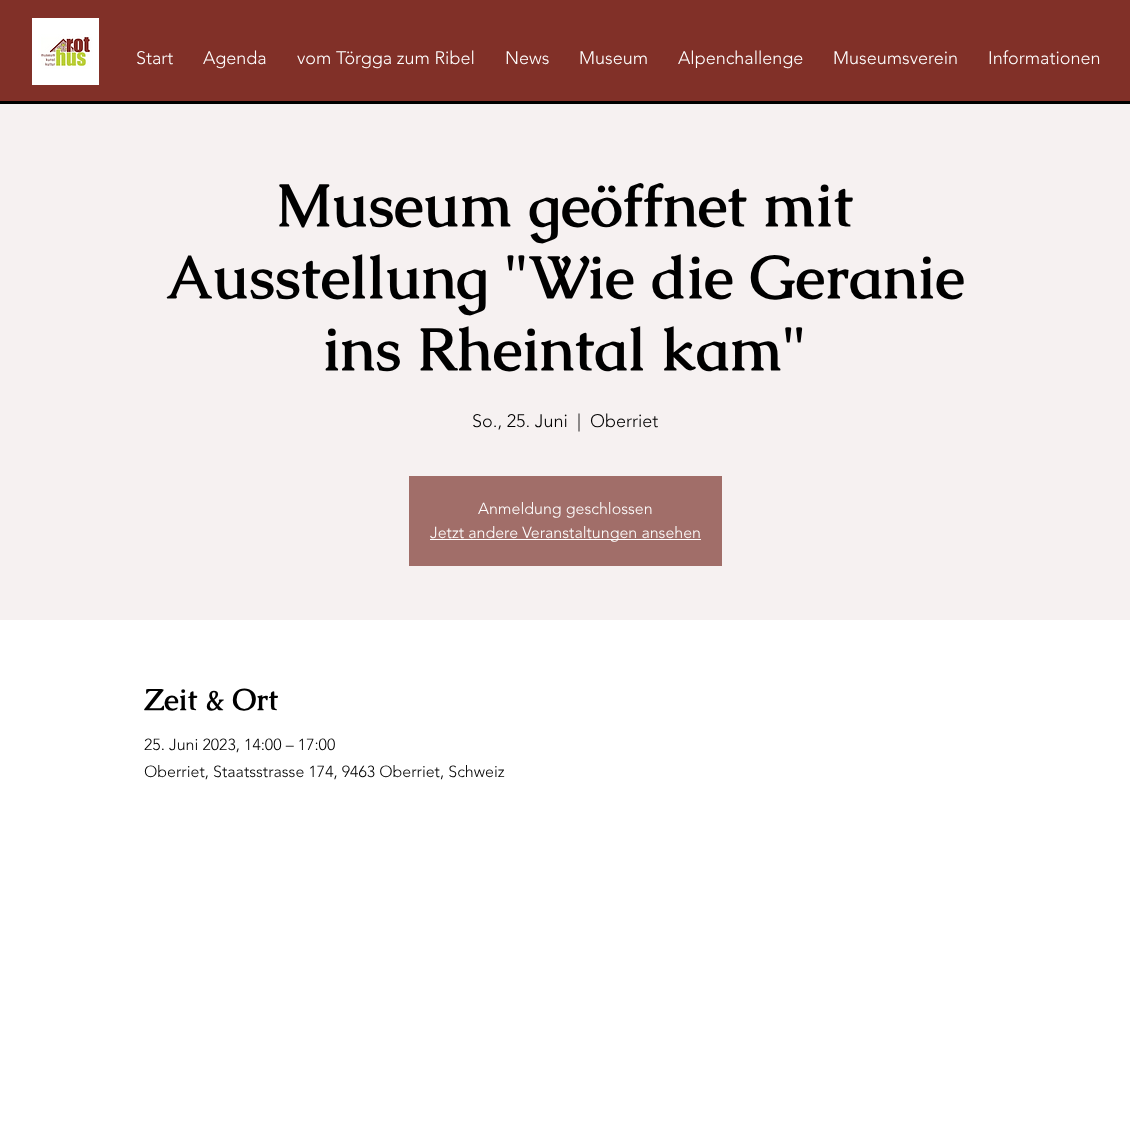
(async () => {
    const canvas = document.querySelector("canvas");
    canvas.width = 1130;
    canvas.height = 1130;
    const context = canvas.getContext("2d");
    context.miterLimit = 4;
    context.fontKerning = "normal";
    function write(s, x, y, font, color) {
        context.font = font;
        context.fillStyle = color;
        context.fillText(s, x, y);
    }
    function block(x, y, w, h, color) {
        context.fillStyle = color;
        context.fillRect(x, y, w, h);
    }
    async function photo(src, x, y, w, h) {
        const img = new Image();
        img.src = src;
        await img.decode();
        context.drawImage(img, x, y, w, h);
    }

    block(0, 0, 1130, 1130, "rgb(255, 255, 255)");
    block(0, 0, 1130, 101, "rgb(129, 48, 40)");
    await photo("media/1.png", 32, 18, 67, 67);
    write("Start", 136, 64, "300 18px 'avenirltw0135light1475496'", "rgb(255, 255, 255)");
    write("Agenda", 203, 64, "300 18px 'avenirltw0135light1475496'", "rgb(255, 255, 255)");
    write("vom Törgga zum Ribel", 297, 64, "300 18px 'avenirltw0135light1475496'", "rgb(255, 255, 255)");
    write("News", 505, 64, "300 18px 'avenirltw0135light1475496'", "rgb(255, 255, 255)");
    write("Museum", 579, 64, "300 18px 'avenirltw0135light1475496'", "rgb(255, 255, 255)");
    write("Alpenchallenge", 678, 64, "300 18px 'avenirltw0135light1475496'", "rgb(255, 255, 255)");
    write("Museumsverein", 833, 64, "300 18px 'avenirltw0135light1475496'", "rgb(255, 255, 255)");
    write("Informationen", 988, 64, "300 18px 'avenirltw0135light1475496'", "rgb(255, 255, 255)");
    block(0, 101, 1130, 3, "rgb(0, 0, 0)");
    block(0, 104, 1130, 516, "rgb(246, 241, 241)");
    write("Museum geöffnet mit", 276, 226, "bold 60px Caudex", "rgb(0, 0, 0)");
    write("Ausstellung \"Wie die Geranie", 166, 298, "bold 60px Caudex", "rgb(0, 0, 0)");
    write("ins Rheintal kam\"", 323, 370, "bold 60px Caudex", "rgb(0, 0, 0)");
    write("So., 25. Juni", 472, 427, "300 18px 'avenirltw0135light1475496'", "rgb(0, 0, 0)");
    write("|", 577, 427, "300 18px 'avenirltw0135light1475496'", "rgb(0, 0, 0)");
    write("Oberriet", 590, 427, "300 18px 'avenirltw0135light1475496'", "rgb(0, 0, 0)");
    block(409, 476, 313, 90, "rgb(161, 110, 105)");
    write("Anmeldung geschlossen", 478, 514, "300 16px 'avenirltw0135light1475496'", "rgb(255, 255, 255)");
    block(430, 539, 271, 1, "rgb(255, 255, 255)");
    write("Jetzt andere Veranstaltungen ansehen", 430, 538, "300 16px 'avenirltw0135light1475496'", "rgb(255, 255, 255)");
    write("Zeit & Ort", 144, 710, "bold 30px Caudex", "rgb(0, 0, 0)");
    write("25. Juni 2023, 14:00 – 17:00", 144, 750, "300 16px 'avenirltw0135light1475496'", "rgb(0, 0, 0)");
    write("Oberriet, Staatsstrasse 174, 9463 Oberriet, Schweiz", 144, 777, "300 16px 'avenirltw0135light1475496'", "rgb(0, 0, 0)");
})();
